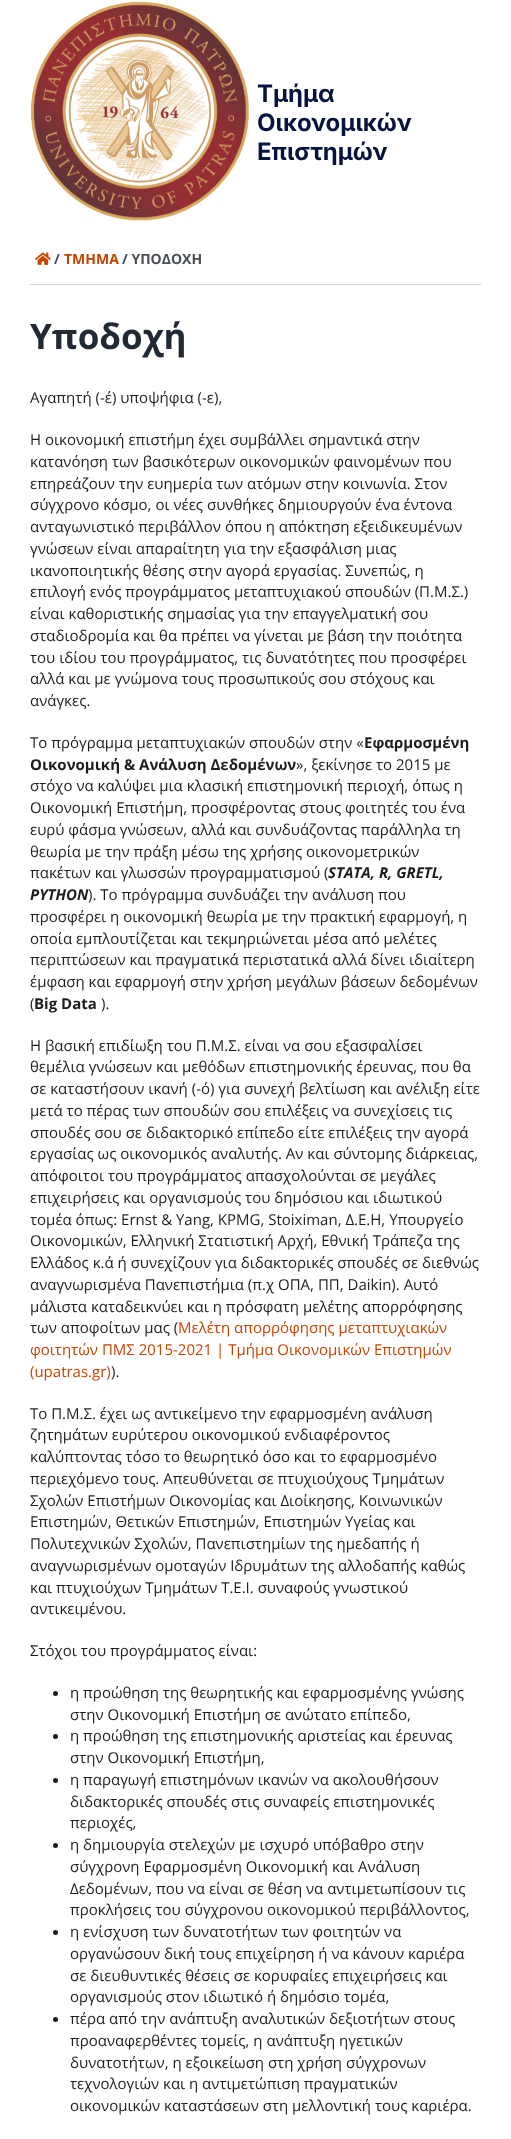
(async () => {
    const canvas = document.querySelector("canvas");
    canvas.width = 511;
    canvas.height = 2139;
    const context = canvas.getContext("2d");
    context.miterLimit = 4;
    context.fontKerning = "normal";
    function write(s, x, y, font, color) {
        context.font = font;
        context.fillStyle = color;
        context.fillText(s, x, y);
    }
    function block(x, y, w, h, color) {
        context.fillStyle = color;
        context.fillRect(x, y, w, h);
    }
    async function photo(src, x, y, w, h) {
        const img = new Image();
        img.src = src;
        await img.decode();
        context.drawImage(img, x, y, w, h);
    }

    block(0, 0, 511, 2139, "rgb(255, 255, 255)");
    await photo("media/1.png", 30, 1, 219, 220);
    write("Τμήμα", 257, 102, "bold 24px Inter", "rgb(9, 19, 63)");
    write("Οικονομικών", 257, 131, "bold 24px Inter", "rgb(9, 19, 63)");
    write("Επιστημών", 257, 160, "bold 24px Inter", "rgb(9, 19, 63)");
    block(30, 284, 451, 1, "rgb(207, 208, 210)");
    await photo("media/2.png", 35, 252, 16, 13);
    write("/", 54, 264, "bold 14px Open Sans", "rgb(74, 78, 87)");
    write("ΤΜΗΜΑ", 64, 264, "bold 14px Open Sans", "rgb(199, 69, 0)");
    write("/ ΥΠΟΔΟΧΗ", 122, 264, "bold 14px Open Sans", "rgb(74, 78, 87)");
    write("Υποδοχή", 30, 349, "bold 35px Open Sans", "rgb(33, 41, 52)");
    write("Αγαπητή (-έ) υποψήφια (-ε),", 30, 403, "15px Open Sans", "rgb(30, 30, 30)");
    write("H oικονομική επιστήμη έχει συμβάλλει σημαντικά στην", 30, 445, "15px Open Sans", "rgb(30, 30, 30)");
    write("κατανόηση των βασικότερων οικονομικών φαινομένων που", 30, 467, "15px Open Sans", "rgb(30, 30, 30)");
    write("επηρεάζουν την ευημερία των ατόμων στην κοινωνία. Στον", 30, 489, "15px Open Sans", "rgb(30, 30, 30)");
    write("σύγχρονο κόσμο, οι νέες συνθήκες δημιουργούν ένα έντονα", 30, 510, "15px Open Sans", "rgb(30, 30, 30)");
    write("ανταγωνιστικό περιβάλλον όπου η απόκτηση εξειδικευμένων", 30, 532, "15px Open Sans", "rgb(30, 30, 30)");
    write("γνώσεων είναι απαραίτητη για την εξασφάλιση μιας", 30, 554, "15px Open Sans", "rgb(30, 30, 30)");
    write("ικανοποιητικής θέσης στην αγορά εργασίας. Συνεπώς, η", 30, 576, "15px Open Sans", "rgb(30, 30, 30)");
    write("επιλογή ενός προγράμματος μεταπτυχιακού σπουδών (Π.Μ.Σ.)", 30, 597, "15px Open Sans", "rgb(30, 30, 30)");
    write("είναι καθοριστικής σημασίας για την επαγγελματική σου", 30, 619, "15px Open Sans", "rgb(30, 30, 30)");
    write("σταδιοδρομία και θα πρέπει να γίνεται με βάση την ποιότητα", 30, 641, "15px Open Sans", "rgb(30, 30, 30)");
    write("του ιδίου του προγράμματος, τις δυνατότητες που προσφέρει", 30, 663, "15px Open Sans", "rgb(30, 30, 30)");
    write("αλλά και με γνώμονα τους προσωπικούς σου στόχους και", 30, 684, "15px Open Sans", "rgb(30, 30, 30)");
    write("ανάγκες.", 30, 706, "15px Open Sans", "rgb(30, 30, 30)");
    write("Το πρόγραμμα μεταπτυχιακών σπουδών στην «", 30, 748, "15px Open Sans", "rgb(30, 30, 30)");
    write("Εφαρμοσμένη", 364, 748, "bold 15px Open Sans", "rgb(30, 30, 30)");
    write("Οικονομική & Ανάλυση Δεδομένων", 30, 770, "bold 15px Open Sans", "rgb(30, 30, 30)");
    write("», ξεκίνησε το 2015 με", 296, 770, "15px Open Sans", "rgb(30, 30, 30)");
    write("στόχο να καλύψει μια κλασική επιστημονική περιοχή, όπως η", 30, 791, "15px Open Sans", "rgb(30, 30, 30)");
    write("Οικονομική Επιστήμη, προσφέροντας στους φοιτητές του ένα", 30, 813, "15px Open Sans", "rgb(30, 30, 30)");
    write("ευρύ φάσμα γνώσεων, αλλά και συνδυάζοντας παράλληλα τη", 30, 835, "15px Open Sans", "rgb(30, 30, 30)");
    write("θεωρία με την πράξη μέσω της χρήσης οικονομετρικών", 30, 857, "15px Open Sans", "rgb(30, 30, 30)");
    write("πακέτων και γλωσσών προγραμματισμού (", 30, 878, "15px Open Sans", "rgb(30, 30, 30)");
    write("STATA, R, GRETL,", 328, 878, "italic bold 15px Open Sans", "rgb(30, 30, 30)");
    write("PYTHON", 30, 900, "italic bold 15px Open Sans", "rgb(30, 30, 30)");
    write("). Το πρόγραμμα συνδυάζει την ανάλυση που", 88, 900, "15px Open Sans", "rgb(30, 30, 30)");
    write("προσφέρει η οικονομική θεωρία με την πρακτική εφαρμογή, η", 30, 922, "15px Open Sans", "rgb(30, 30, 30)");
    write("οποία εμπλουτίζεται και τεκμηριώνεται μέσα από μελέτες", 30, 944, "15px Open Sans", "rgb(30, 30, 30)");
    write("περιπτώσεων και πραγματικά περιστατικά αλλά δίνει ιδιαίτερη", 30, 965, "15px Open Sans", "rgb(30, 30, 30)");
    write("έμφαση και εφαρμογή στην χρήση μεγάλων βάσεων δεδομένων", 30, 987, "15px Open Sans", "rgb(30, 30, 30)");
    write("(", 30, 1009, "15px Open Sans", "rgb(30, 30, 30)");
    write("Big Data", 34, 1009, "bold 15px Open Sans", "rgb(30, 30, 30)");
    write(").", 101, 1009, "15px Open Sans", "rgb(30, 30, 30)");
    write("Η βασική επιδίωξη του Π.Μ.Σ. είναι να σου εξασφαλίσει", 30, 1051, "15px Open Sans", "rgb(30, 30, 30)");
    write("θεμέλια γνώσεων και μεθόδων επιστημονικής έρευνας, που θα", 30, 1072, "15px Open Sans", "rgb(30, 30, 30)");
    write("σε καταστήσουν ικανή (-ό) για συνεχή βελτίωση και ανέλιξη είτε", 30, 1094, "15px Open Sans", "rgb(30, 30, 30)");
    write("μετά το πέρας των σπουδών σου επιλέξεις να συνεχίσεις τις", 30, 1116, "15px Open Sans", "rgb(30, 30, 30)");
    write("σπουδές σου σε διδακτορικό επίπεδο είτε επιλέξεις την αγορά", 30, 1138, "15px Open Sans", "rgb(30, 30, 30)");
    write("εργασίας ως οικονομικός αναλυτής. Αν και σύντομης διάρκειας,", 30, 1159, "15px Open Sans", "rgb(30, 30, 30)");
    write("απόφοιτοι του προγράμματος απασχολούνται σε μεγάλες", 30, 1181, "15px Open Sans", "rgb(30, 30, 30)");
    write("επιχειρήσεις και οργανισμούς του δημόσιου και ιδιωτικού", 30, 1203, "15px Open Sans", "rgb(30, 30, 30)");
    write("τομέα όπως: Ernst & Yang, KPMG, Stoiximan, Δ.Ε.Η, Υπουργείο", 30, 1225, "15px Open Sans", "rgb(30, 30, 30)");
    write("Οικονομικών, Ελληνική Στατιστική Αρχή, Εθνική Τράπεζα της", 30, 1246, "15px Open Sans", "rgb(30, 30, 30)");
    write("Ελλάδος κ.ά ή συνεχίζουν για διδακτορικές σπουδές σε διεθνώς", 30, 1268, "15px Open Sans", "rgb(30, 30, 30)");
    write("αναγνωρισμένα Πανεπιστήμια (π.χ ΟΠΑ, ΠΠ, Daikin). Αυτό", 30, 1290, "15px Open Sans", "rgb(30, 30, 30)");
    write("μάλιστα καταδεικνύει και η πρόσφατη μελέτης απορρόφησης", 30, 1312, "15px Open Sans", "rgb(30, 30, 30)");
    write("των αποφοίτων μας (", 30, 1333, "15px Open Sans", "rgb(30, 30, 30)");
    write("Μελέτη απορρόφησης μεταπτυχιακών", 178, 1333, "15px Open Sans", "rgb(199, 69, 0)");
    write("φοιτητών ΠΜΣ 2015-2021 | Τμήμα Οικονομικών Επιστημών", 30, 1355, "15px Open Sans", "rgb(199, 69, 0)");
    write("(upatras.gr)", 30, 1377, "15px Open Sans", "rgb(199, 69, 0)");
    write(").", 111, 1377, "15px Open Sans", "rgb(30, 30, 30)");
    write("Το Π.Μ.Σ. έχει ως αντικείμενο την εφαρμοσμένη ανάλυση", 30, 1419, "15px Open Sans", "rgb(30, 30, 30)");
    write("ζητημάτων ευρύτερου οικονομικού ενδιαφέροντος", 30, 1440, "15px Open Sans", "rgb(30, 30, 30)");
    write("καλύπτοντας τόσο το θεωρητικό όσο και το εφαρμοσμένο", 30, 1462, "15px Open Sans", "rgb(30, 30, 30)");
    write("περιεχόμενο τους. Απευθύνεται σε πτυχιούχους Τμημάτων", 30, 1484, "15px Open Sans", "rgb(30, 30, 30)");
    write("Σχολών Επιστήμων Οικονομίας και Διοίκησης, Κοινωνικών", 30, 1506, "15px Open Sans", "rgb(30, 30, 30)");
    write("Επιστημών, Θετικών Επιστημών, Επιστημών Υγείας και", 30, 1527, "15px Open Sans", "rgb(30, 30, 30)");
    write("Πολυτεχνικών Σχολών, Πανεπιστημίων της ημεδαπής ή", 30, 1549, "15px Open Sans", "rgb(30, 30, 30)");
    write("αναγνωρισμένων ομοταγών Ιδρυμάτων της αλλοδαπής καθώς", 30, 1571, "15px Open Sans", "rgb(30, 30, 30)");
    write("και πτυχιούχων Τμημάτων Τ.Ε.Ι. συναφούς γνωστικού", 30, 1593, "15px Open Sans", "rgb(30, 30, 30)");
    write("αντικειμένου.", 30, 1614, "15px Open Sans", "rgb(30, 30, 30)");
    write("Στόχοι του προγράμματος είναι:", 30, 1656, "15px Open Sans", "rgb(30, 30, 30)");
    context.beginPath();
    context.arc(55.5, 1693.5, 2.5, 0, Math.PI * 2);
    context.fill();
    write("η προώθηση της θεωρητικής και εφαρμοσμένης γνώσης", 70, 1698, "15px Open Sans", "rgb(30, 30, 30)");
    write("στην Οικονομική Επιστήμη σε ανώτατο επίπεδο,", 70, 1720, "15px Open Sans", "rgb(30, 30, 30)");
    context.beginPath();
    context.arc(55.5, 1736.5, 2.5, 0, Math.PI * 2);
    context.fill();
    write("η προώθηση της επιστημονικής αριστείας και έρευνας", 70, 1741, "15px Open Sans", "rgb(30, 30, 30)");
    write("στην Οικονομική Επιστήμη,", 70, 1763, "15px Open Sans", "rgb(30, 30, 30)");
    context.beginPath();
    context.arc(55.5, 1780.5, 2.5, 0, Math.PI * 2);
    context.fill();
    write("η παραγωγή επιστημόνων ικανών να ακολουθήσουν", 70, 1785, "15px Open Sans", "rgb(30, 30, 30)");
    write("διδακτορικές σπουδές στις συναφείς επιστημονικές", 70, 1807, "15px Open Sans", "rgb(30, 30, 30)");
    write("περιοχές,", 70, 1828, "15px Open Sans", "rgb(30, 30, 30)");
    context.beginPath();
    context.arc(55.5, 1845.5, 2.5, 0, Math.PI * 2);
    context.fill();
    write("η δημιουργία στελεχών με ισχυρό υπόβαθρο στην", 70, 1850, "15px Open Sans", "rgb(30, 30, 30)");
    write("σύγχρονη Εφαρμοσμένη Οικονομική και Ανάλυση", 70, 1872, "15px Open Sans", "rgb(30, 30, 30)");
    write("Δεδομένων, που να είναι σε θέση να αντιμετωπίσουν τις", 70, 1894, "15px Open Sans", "rgb(30, 30, 30)");
    write("προκλήσεις του σύγχρονου οικονομικού περιβάλλοντος,", 70, 1915, "15px Open Sans", "rgb(30, 30, 30)");
    context.beginPath();
    context.arc(55.5, 1932.5, 2.5, 0, Math.PI * 2);
    context.fill();
    write("η ενίσχυση των δυνατοτήτων των φοιτητών να", 70, 1937, "15px Open Sans", "rgb(30, 30, 30)");
    write("οργανώσουν δική τους επιχείρηση ή να κάνουν καριέρα", 70, 1959, "15px Open Sans", "rgb(30, 30, 30)");
    write("σε διευθυντικές θέσεις σε κορυφαίες επιχειρήσεις και", 70, 1981, "15px Open Sans", "rgb(30, 30, 30)");
    write("οργανισμούς στον ιδιωτικό ή δημόσιο τομέα,", 70, 2002, "15px Open Sans", "rgb(30, 30, 30)");
    context.beginPath();
    context.arc(55.5, 2019.5, 2.5, 0, Math.PI * 2);
    context.fill();
    write("πέρα από την ανάπτυξη αναλυτικών δεξιοτήτων στους", 70, 2024, "15px Open Sans", "rgb(30, 30, 30)");
    write("προαναφερθέντες τομείς, η ανάπτυξη ηγετικών", 70, 2046, "15px Open Sans", "rgb(30, 30, 30)");
    write("δυνατοτήτων, η εξοικείωση στη χρήση σύγχρονων", 70, 2068, "15px Open Sans", "rgb(30, 30, 30)");
    write("τεχνολογιών και η αντιμετώπιση πραγματικών", 70, 2089, "15px Open Sans", "rgb(30, 30, 30)");
    write("οικονομικών καταστάσεων στη μελλοντική τους καριέρα.", 70, 2111, "15px Open Sans", "rgb(30, 30, 30)");
})();
